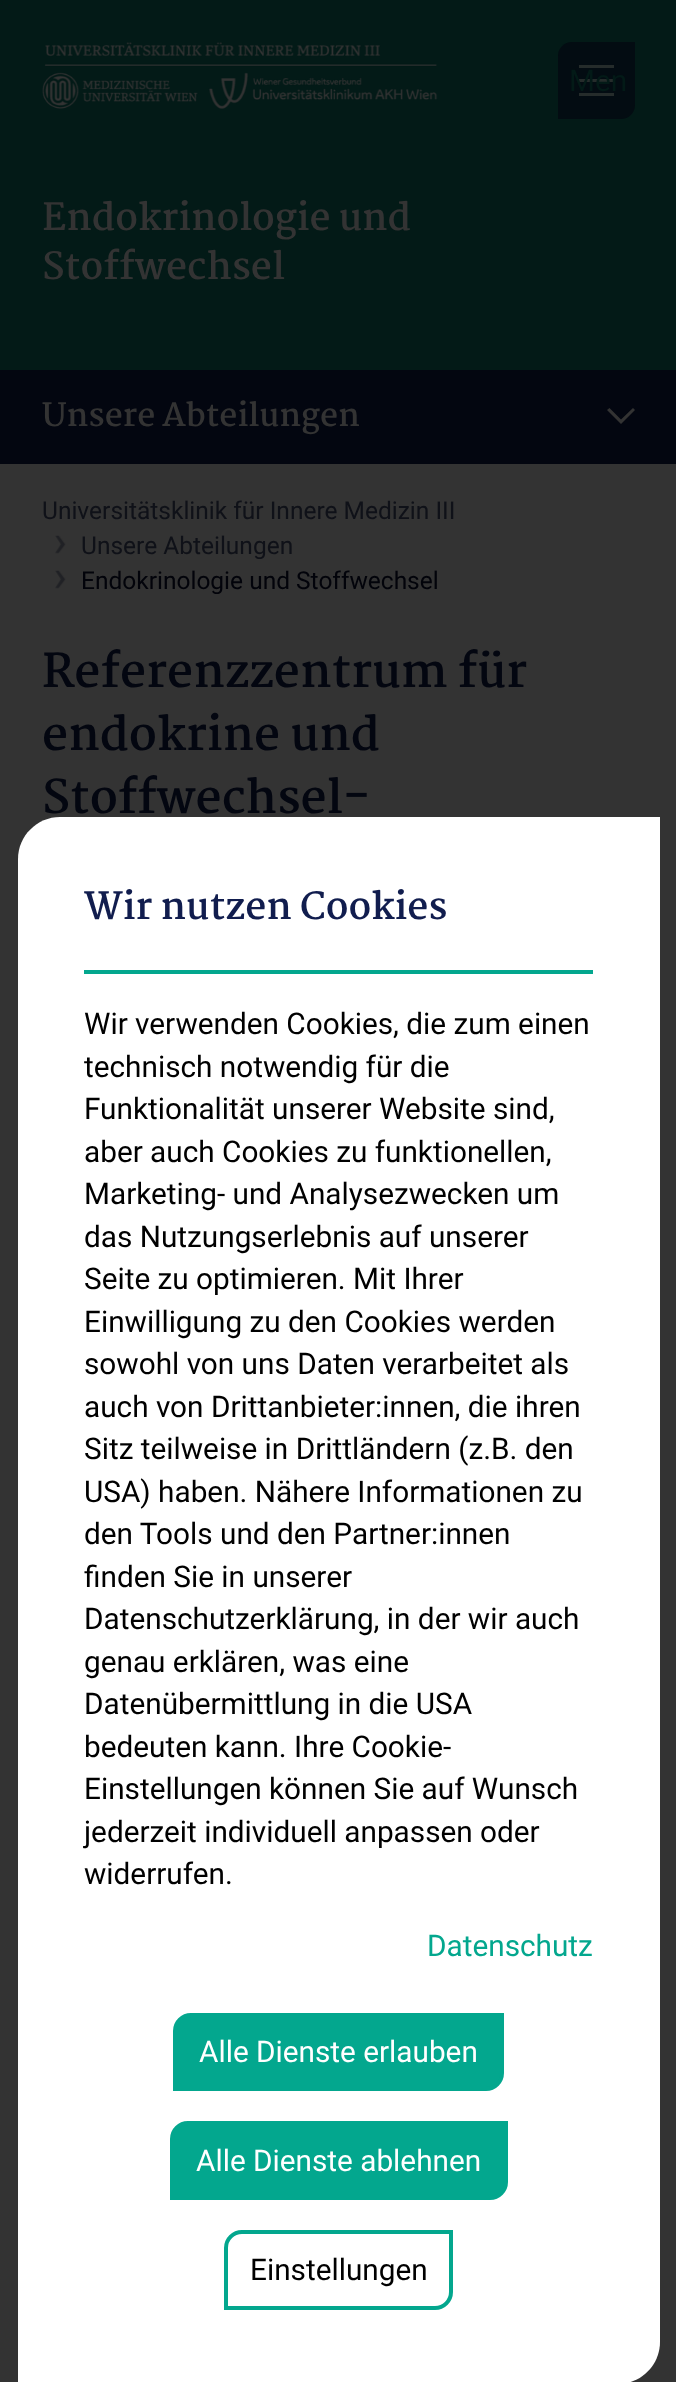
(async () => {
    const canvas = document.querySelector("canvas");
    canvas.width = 676;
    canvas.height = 2382;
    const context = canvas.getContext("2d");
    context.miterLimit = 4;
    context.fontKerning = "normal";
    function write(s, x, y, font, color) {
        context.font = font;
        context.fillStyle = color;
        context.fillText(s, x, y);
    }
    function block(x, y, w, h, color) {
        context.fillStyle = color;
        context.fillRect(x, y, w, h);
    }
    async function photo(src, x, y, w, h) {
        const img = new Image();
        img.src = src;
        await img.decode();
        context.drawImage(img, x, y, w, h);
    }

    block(0, 0, 676, 2382, "rgb(51, 51, 51)");
    block(0, 0, 676, 370, "rgb(3, 26, 23)");
    context.fillStyle = "rgb(3, 12, 18)";
    context.beginPath();
    context.roundRect(558, 42, 77, 77, [14, 0, 14, 0]);
    context.fill();
    context.fillStyle = "rgb(37, 44, 43)";
    context.beginPath();
    context.moveTo(579, 96);
    context.lineTo(614, 96);
    context.lineTo(614, 93);
    context.lineTo(579, 93);
    context.closePath();
    context.moveTo(579, 82);
    context.lineTo(614, 82);
    context.lineTo(614, 79);
    context.lineTo(579, 79);
    context.closePath();
    context.moveTo(579, 68);
    context.lineTo(614, 68);
    context.lineTo(614, 65);
    context.lineTo(579, 65);
    context.closePath();
    context.fill("evenodd");
    write("Men", 569, 91, "29.75px Roboto", "rgb(3, 26, 23)");
    await photo("media/1.png", 42, 42, 396, 67);
    write("Endokrinologie und", 42, 230, "bold 36.75px Martel", "rgb(51, 51, 51)");
    write("Stoffwechsel", 42, 279, "bold 36.75px Martel", "rgb(51, 51, 51)");
    block(0, 370, 676, 94, "rgb(3, 6, 16)");
    context.fillStyle = "rgb(51, 51, 51)";
    context.beginPath();
    context.moveTo(621, 424);
    context.lineTo(635, 410);
    context.lineTo(633, 408);
    context.lineTo(621, 419.5);
    context.lineTo(609.5, 408);
    context.lineTo(607, 410);
    context.lineTo(621, 424);
    context.fill("evenodd");
    write("Unsere Abteilungen", 42, 426, "bold 31.5px Martel", "rgb(51, 51, 51)");
    write("Universitätsklinik für Innere Medizin III", 42, 519, "24.5px Roboto", "rgb(15, 17, 24)");
    await photo("media/2.png", 55, 535, 11, 19);
    write("Unsere Abteilungen", 81, 554, "24.5px Roboto", "rgb(15, 17, 24)");
    await photo("media/2.png", 55, 570, 11, 19);
    write("Endokrinologie und Stoffwechsel", 81, 589, "24.5px Roboto", "rgb(2, 3, 10)");
    write("Referenzzentrum für", 42, 687, "bold 45.5px Martel", "rgb(3, 6, 16)");
    write("endokrine und", 42, 750, "bold 45.5px Martel", "rgb(3, 6, 16)");
    write("Stoffwechsel-", 42, 813, "bold 45.5px Martel", "rgb(3, 6, 16)");
    context.fillStyle = "rgb(255, 255, 255)";
    context.beginPath();
    context.moveTo(60, 817);
    context.lineTo(660, 817);
    context.lineTo(660, 2342);
    context.bezierCurveTo(660, 2365, 641, 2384, 618, 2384);
    context.lineTo(18, 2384);
    context.lineTo(18, 859);
    context.bezierCurveTo(18, 836, 37, 817, 60, 817);
    context.closePath();
    context.fill();
    block(84, 970, 509, 4, "rgb(3, 167, 142)");
    write("Wir nutzen Cookies", 84, 919, "bold 36.75px Martel", "rgb(17, 29, 78)");
    write("Wir verwenden Cookies, die zum einen", 84, 1034, "29.75px Roboto", "rgb(0, 0, 0)");
    write("technisch notwendig für die", 84, 1077, "29.75px Roboto", "rgb(0, 0, 0)");
    write("Funktionalität unserer Website sind,", 84, 1119, "29.75px Roboto", "rgb(0, 0, 0)");
    write("aber auch Cookies zu funktionellen,", 84, 1162, "29.75px Roboto", "rgb(0, 0, 0)");
    write("Marketing- und Analysezwecken um", 84, 1204, "29.75px Roboto", "rgb(0, 0, 0)");
    write("das Nutzungserlebnis auf unserer", 84, 1247, "29.75px Roboto", "rgb(0, 0, 0)");
    write("Seite zu optimieren. Mit Ihrer", 84, 1289, "29.75px Roboto", "rgb(0, 0, 0)");
    write("Einwilligung zu den Cookies werden", 84, 1332, "29.75px Roboto", "rgb(0, 0, 0)");
    write("sowohl von uns Daten verarbeitet als", 84, 1374, "29.75px Roboto", "rgb(0, 0, 0)");
    write("auch von Drittanbieter:innen, die ihren", 84, 1417, "29.75px Roboto", "rgb(0, 0, 0)");
    write("Sitz teilweise in Drittländern (z.B. den", 84, 1459, "29.75px Roboto", "rgb(0, 0, 0)");
    write("USA) haben. Nähere Informationen zu", 84, 1502, "29.75px Roboto", "rgb(0, 0, 0)");
    write("den Tools und den Partner:innen", 84, 1544, "29.75px Roboto", "rgb(0, 0, 0)");
    write("finden Sie in unserer", 84, 1587, "29.75px Roboto", "rgb(0, 0, 0)");
    write("Datenschutzerklärung, in der wir auch", 84, 1629, "29.75px Roboto", "rgb(0, 0, 0)");
    write("genau erklären, was eine", 84, 1672, "29.75px Roboto", "rgb(0, 0, 0)");
    write("Datenübermittlung in die USA", 84, 1714, "29.75px Roboto", "rgb(0, 0, 0)");
    write("bedeuten kann. Ihre Cookie-", 84, 1757, "29.75px Roboto", "rgb(0, 0, 0)");
    write("Einstellungen können Sie auf Wunsch", 84, 1799, "29.75px Roboto", "rgb(0, 0, 0)");
    write("jederzeit individuell anpassen oder", 84, 1842, "29.75px Roboto", "rgb(0, 0, 0)");
    write("widerrufen.", 84, 1884, "29.75px Roboto", "rgb(0, 0, 0)");
    write("Datenschutz", 427, 1956, "29.75px Roboto", "rgb(3, 167, 142)");
    context.beginPath();
    context.roundRect(175, 2015, 327, 74, [16, 0, 16, 0]);
    context.fill();
    context.strokeStyle = "rgb(3, 167, 142)";
    context.lineWidth = 4;
    context.stroke();
    write("Alle Dienste erlauben", 199, 2062, "29.75px Roboto", "rgb(255, 255, 255)");
    context.fillStyle = "rgb(3, 167, 142)";
    context.beginPath();
    context.roundRect(172, 2123, 334, 75, [16, 0, 16, 0]);
    context.fill();
    context.stroke();
    write("Alle Dienste ablehnen", 196, 2171, "29.75px Roboto", "rgb(255, 255, 255)");
    context.beginPath();
    context.roundRect(226, 2232, 225, 76, [16, 0, 16, 0]);
    context.stroke();
    write("Einstellungen", 250, 2280, "29.75px Roboto", "rgb(0, 0, 0)");
})();
